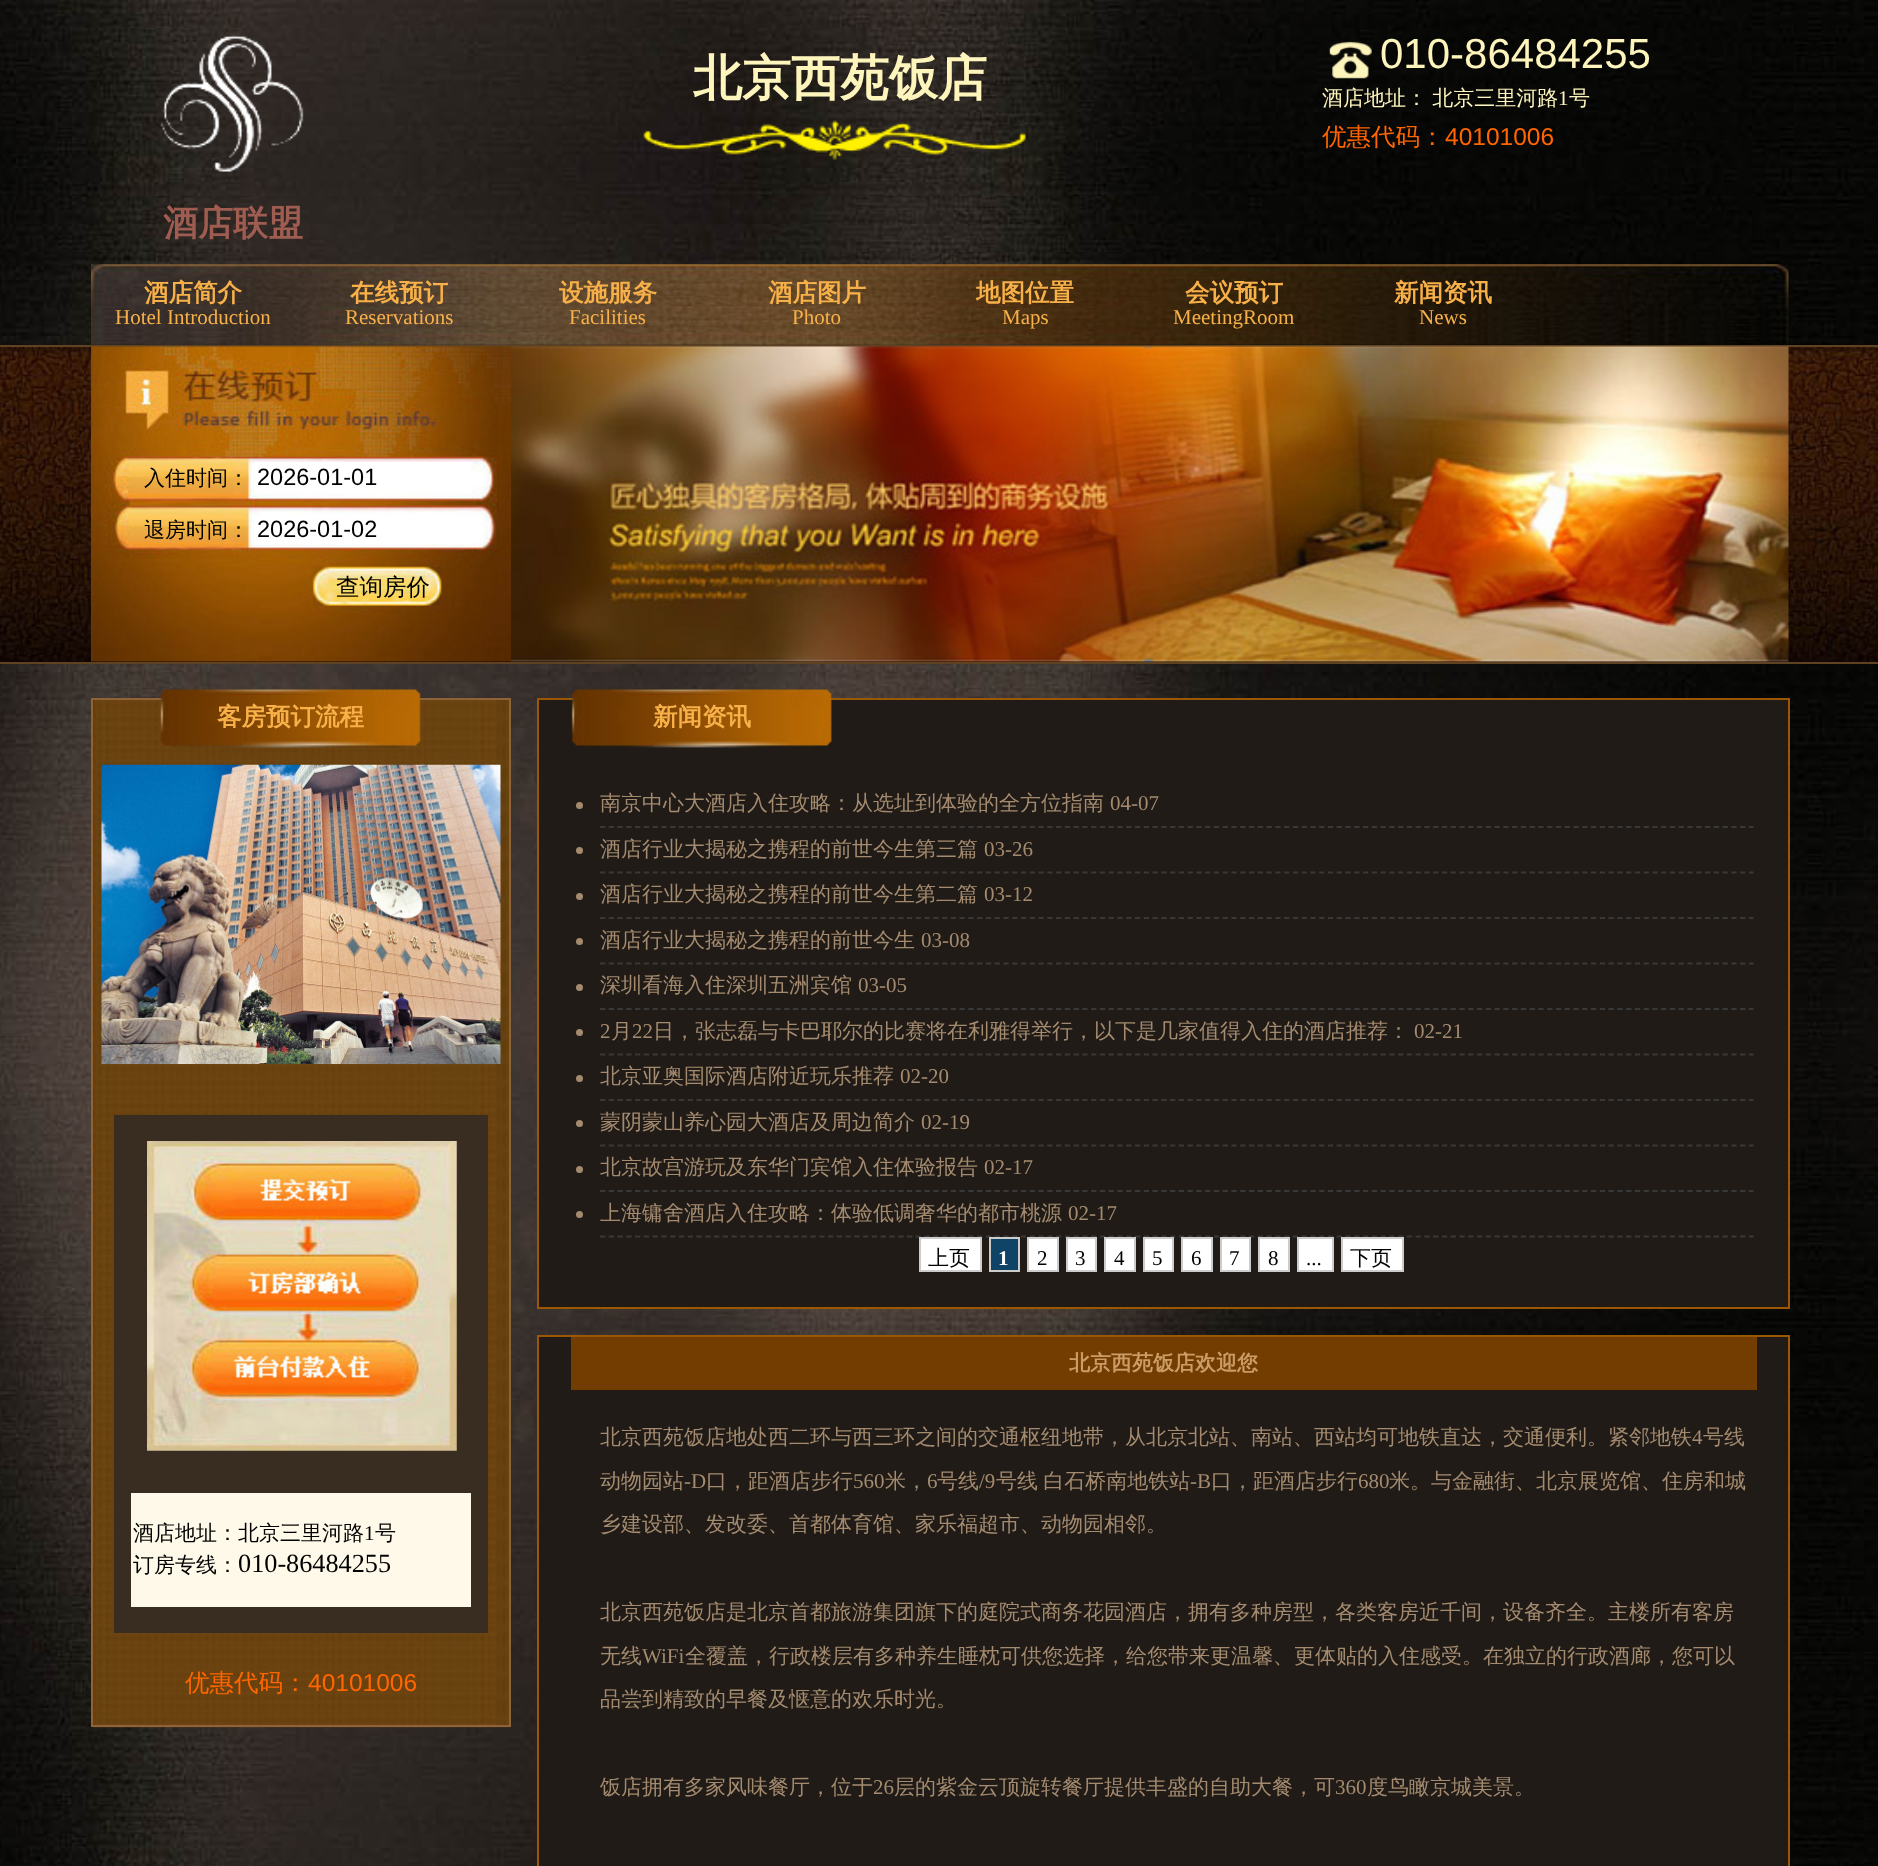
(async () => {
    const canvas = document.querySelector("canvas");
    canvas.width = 1878;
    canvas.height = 1866;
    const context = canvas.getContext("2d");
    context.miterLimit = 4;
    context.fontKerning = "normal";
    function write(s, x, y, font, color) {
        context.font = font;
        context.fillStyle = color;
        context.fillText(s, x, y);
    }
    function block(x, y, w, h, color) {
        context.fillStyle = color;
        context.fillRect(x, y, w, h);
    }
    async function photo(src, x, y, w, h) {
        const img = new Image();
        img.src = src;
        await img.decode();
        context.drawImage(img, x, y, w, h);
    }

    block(0, 0, 1878, 1866, "rgb(255, 255, 255)");
    await photo("media/1.png", 0, 0, 1878, 1866);
    write("北京西苑饭店", 693, 95, "bold 49px WenQuanYi Zen Hei", "rgb(254, 245, 188)");
    await photo("media/2.png", 643, 120, 383, 40);
    await photo("media/3.png", 1329, 41, 43, 38);
    write("010-86484255", 1380, 68, "42px Liberation Sans", "rgb(254, 245, 188)");
    context.wordSpacing = "-1px";
    write("酒店地址： 北京三里河路", 1322, 105, "500 21px WenQuanYi Zen Hei", "rgb(254, 245, 188)");
    context.wordSpacing = "0px";
    write("1", 1558, 105, "21px Liberation Serif", "rgb(254, 245, 188)");
    write("号", 1569, 105, "500 21px WenQuanYi Zen Hei", "rgb(254, 245, 188)");
    write("优惠代码：", 1322, 145, "500 24.5px WenQuanYi Zen Hei", "rgb(255, 102, 0)");
    write("40101006", 1445, 145, "24.5px Liberation Sans", "rgb(255, 102, 0)");
    await photo("media/4.png", 160, 34, 144, 138);
    write("酒店联盟", 163, 235, "bold 35px WenQuanYi Zen Hei", "rgb(159, 92, 80)");
    await photo("media/5.png", 91, 264, 1698, 81);
    write("酒店简介", 144, 301, "bold 24.5px WenQuanYi Zen Hei", "rgb(248, 177, 73)");
    write("Hotel Introduction", 115, 324, "21px Liberation Serif", "rgb(248, 177, 73)");
    write("在线预订", 350, 301, "bold 24.5px WenQuanYi Zen Hei", "rgb(248, 177, 73)");
    write("Reservations", 345, 324, "21px Liberation Serif", "rgb(248, 177, 73)");
    write("设施服务", 559, 301, "bold 24.5px WenQuanYi Zen Hei", "rgb(248, 177, 73)");
    write("Facilities", 569, 324, "21px Liberation Serif", "rgb(248, 177, 73)");
    write("酒店图片", 768, 301, "bold 24.5px WenQuanYi Zen Hei", "rgb(248, 177, 73)");
    write("Photo", 792, 324, "21px Liberation Serif", "rgb(248, 177, 73)");
    write("地图位置", 976, 301, "bold 24.5px WenQuanYi Zen Hei", "rgb(248, 177, 73)");
    write("Maps", 1002, 324, "21px Liberation Serif", "rgb(248, 177, 73)");
    write("会议预订", 1185, 301, "bold 24.5px WenQuanYi Zen Hei", "rgb(248, 177, 73)");
    write("MeetingRoom", 1173, 324, "21px Liberation Serif", "rgb(248, 177, 73)");
    write("新闻资讯", 1394, 301, "bold 24.5px WenQuanYi Zen Hei", "rgb(248, 177, 73)");
    write("News", 1419, 324, "21px Liberation Serif", "rgb(248, 177, 73)");
    await photo("media/6.png", 0, 347, 1878, 315);
    block(0, 345, 1878, 2, "rgb(95, 66, 34)");
    block(0, 662, 1878, 2, "rgb(95, 66, 34)");
    await photo("media/7.png", 91, 346, 420, 316);
    write("入住时间：", 144, 485, "500 21px WenQuanYi Zen Hei", "rgb(0, 0, 0)");
    block(254, 462, 217, 30, "rgb(255, 255, 255)");
    write("2026-01-01", 257, 485, "23.5px Liberation Sans", "rgb(0, 0, 0)");
    write("退房时间：", 144, 537, "500 21px WenQuanYi Zen Hei", "rgb(0, 0, 0)");
    block(254, 515, 217, 29, "rgb(255, 255, 255)");
    write("2026-01-02", 257, 537, "23.5px Liberation Sans", "rgb(0, 0, 0)");
    write("查询房价", 336, 595, "500 23.5px WenQuanYi Zen Hei", "rgb(0, 0, 0)");
    await photo("media/8.png", 511, 346, 1278, 316);
    await photo("media/9.png", 92, 700, 418, 1028);
    context.strokeStyle = "rgb(143, 98, 57)";
    context.lineWidth = 2;
    context.strokeRect(92, 699, 418, 1027);
    await photo("media/10.png", 160, 689, 261, 59);
    write("客房预订流程", 217, 725, "bold 24.5px WenQuanYi Zen Hei", "rgb(248, 177, 73)");
    await photo("media/11.png", 101, 764, 400, 300);
    block(114, 1115, 374, 518, "rgb(57, 45, 33)");
    await photo("media/12.png", 147, 1141, 310, 310);
    block(131, 1493, 340, 114, "rgb(255, 249, 233)");
    write("酒店地址：北京三里河路", 133, 1540, "500 21px WenQuanYi Zen Hei", "rgb(0, 0, 0)");
    write("1", 364, 1540, "21px Liberation Serif", "rgb(0, 0, 0)");
    write("号", 375, 1540, "500 21px WenQuanYi Zen Hei", "rgb(0, 0, 0)");
    write("订房专线：", 133, 1572, "500 21px WenQuanYi Zen Hei", "rgb(0, 0, 0)");
    write("010-86484255", 238, 1572, "26.25px Liberation Serif", "rgb(0, 0, 0)");
    write("优惠代码：", 185, 1691, "500 24.5px WenQuanYi Zen Hei", "rgb(255, 102, 0)");
    write("40101006", 308, 1691, "24.5px Liberation Sans", "rgb(255, 102, 0)");
    context.fillStyle = "rgb(32, 27, 23)";
    context.beginPath();
    context.rect(538, 699, 1251, 609);
    context.fill();
    context.strokeStyle = "rgb(155, 87, 2)";
    context.stroke();
    await photo("media/13.png", 571, 689, 261, 59);
    write("新闻资讯", 653, 725, "bold 24.5px WenQuanYi Zen Hei", "rgb(248, 177, 73)");
    context.beginPath();
    context.moveTo(600, 827);
    context.lineTo(1753.5, 827);
    context.strokeStyle = "rgb(56, 56, 56)";
    context.lineWidth = 1.8;
    context.setLineDash([5.25, 3.52]);
    context.stroke();
    context.fillStyle = "rgb(164, 139, 111)";
    context.beginPath();
    context.arc(579.5, 805.5, 3.5, 0, Math.PI * 2);
    context.fill();
    write("南京中心大酒店入住攻略：从选址到体验的全方位指南", 600, 810, "500 21px WenQuanYi Zen Hei", "rgb(164, 139, 111)");
    write("04-07", 1110, 810, "21px Liberation Serif", "rgb(164, 139, 111)");
    context.beginPath();
    context.moveTo(600, 872.5);
    context.lineTo(1753.5, 872.5);
    context.stroke();
    context.beginPath();
    context.arc(579.5, 850.5, 3.5, 0, Math.PI * 2);
    context.fill();
    write("酒店行业大揭秘之携程的前世今生第三篇", 600, 856, "500 21px WenQuanYi Zen Hei", "rgb(164, 139, 111)");
    write("03-26", 984, 856, "21px Liberation Serif", "rgb(164, 139, 111)");
    context.beginPath();
    context.moveTo(600, 918);
    context.lineTo(1753.5, 918);
    context.stroke();
    context.beginPath();
    context.arc(579.5, 896.5, 3.5, 0, Math.PI * 2);
    context.fill();
    write("酒店行业大揭秘之携程的前世今生第二篇", 600, 901, "500 21px WenQuanYi Zen Hei", "rgb(164, 139, 111)");
    write("03-12", 984, 901, "21px Liberation Serif", "rgb(164, 139, 111)");
    context.beginPath();
    context.moveTo(600, 963.5);
    context.lineTo(1753.5, 963.5);
    context.stroke();
    context.beginPath();
    context.arc(579.5, 941.5, 3.5, 0, Math.PI * 2);
    context.fill();
    write("酒店行业大揭秘之携程的前世今生", 600, 947, "500 21px WenQuanYi Zen Hei", "rgb(164, 139, 111)");
    write("03-08", 921, 947, "21px Liberation Serif", "rgb(164, 139, 111)");
    context.beginPath();
    context.moveTo(600, 1009);
    context.lineTo(1753.5, 1009);
    context.stroke();
    context.beginPath();
    context.arc(579.5, 987.5, 3.5, 0, Math.PI * 2);
    context.fill();
    write("深圳看海入住深圳五洲宾馆", 600, 992, "500 21px WenQuanYi Zen Hei", "rgb(164, 139, 111)");
    write("03-05", 858, 992, "21px Liberation Serif", "rgb(164, 139, 111)");
    context.beginPath();
    context.moveTo(600, 1054.5);
    context.lineTo(1753.5, 1054.5);
    context.stroke();
    context.beginPath();
    context.arc(579.5, 1032.5, 3.5, 0, Math.PI * 2);
    context.fill();
    write("2", 600, 1038, "21px Liberation Serif", "rgb(164, 139, 111)");
    write("月", 611, 1038, "500 21px WenQuanYi Zen Hei", "rgb(164, 139, 111)");
    write("22", 632, 1038, "21px Liberation Serif", "rgb(164, 139, 111)");
    write("日，张志磊与卡巴耶尔的比赛将在利雅得举行，以下是几家值得入住的酒店推荐：", 653, 1038, "500 21px WenQuanYi Zen Hei", "rgb(164, 139, 111)");
    write("02-21", 1414, 1038, "21px Liberation Serif", "rgb(164, 139, 111)");
    context.beginPath();
    context.moveTo(600, 1100);
    context.lineTo(1753.5, 1100);
    context.stroke();
    context.beginPath();
    context.arc(579.5, 1078.5, 3.5, 0, Math.PI * 2);
    context.fill();
    write("北京亚奥国际酒店附近玩乐推荐", 600, 1083, "500 21px WenQuanYi Zen Hei", "rgb(164, 139, 111)");
    write("02-20", 900, 1083, "21px Liberation Serif", "rgb(164, 139, 111)");
    context.beginPath();
    context.moveTo(600, 1145.5);
    context.lineTo(1753.5, 1145.5);
    context.stroke();
    context.beginPath();
    context.arc(579.5, 1123.5, 3.5, 0, Math.PI * 2);
    context.fill();
    write("蒙阴蒙山养心园大酒店及周边简介", 600, 1129, "500 21px WenQuanYi Zen Hei", "rgb(164, 139, 111)");
    write("02-19", 921, 1129, "21px Liberation Serif", "rgb(164, 139, 111)");
    context.beginPath();
    context.moveTo(600, 1191);
    context.lineTo(1753.5, 1191);
    context.stroke();
    context.beginPath();
    context.arc(579.5, 1169.5, 3.5, 0, Math.PI * 2);
    context.fill();
    write("北京故宫游玩及东华门宾馆入住体验报告", 600, 1174, "500 21px WenQuanYi Zen Hei", "rgb(164, 139, 111)");
    write("02-17", 984, 1174, "21px Liberation Serif", "rgb(164, 139, 111)");
    context.beginPath();
    context.moveTo(600, 1236.5);
    context.lineTo(1753.5, 1236.5);
    context.stroke();
    context.beginPath();
    context.arc(579.5, 1214.5, 3.5, 0, Math.PI * 2);
    context.fill();
    write("上海镛舍酒店入住攻略：体验低调奢华的都市桃源", 600, 1220, "500 21px WenQuanYi Zen Hei", "rgb(164, 139, 111)");
    write("02-17", 1068, 1220, "21px Liberation Serif", "rgb(164, 139, 111)");
    context.fillStyle = "rgb(255, 255, 255)";
    context.beginPath();
    context.rect(920, 1238, 61, 33);
    context.fill();
    context.strokeStyle = "rgb(204, 204, 204)";
    context.lineWidth = 2;
    context.setLineDash([]);
    context.stroke();
    write("上页", 928, 1265, "500 21px WenQuanYi Zen Hei", "rgb(0, 0, 0)");
    context.fillStyle = "rgb(15, 68, 102)";
    context.beginPath();
    context.rect(990, 1238, 29, 33);
    context.fill();
    context.stroke();
    write("1", 998, 1265, "bold 21px Liberation Serif", "rgb(255, 255, 255)");
    context.beginPath();
    context.rect(1028, 1238, 30, 33);
    context.fill();
    context.stroke();
    write("2", 1037, 1265, "21px Liberation Serif", "rgb(0, 0, 0)");
    context.fillStyle = "rgb(255, 255, 255)";
    context.beginPath();
    context.rect(1067, 1238, 29, 33);
    context.fill();
    context.stroke();
    write("3", 1075, 1265, "21px Liberation Serif", "rgb(0, 0, 0)");
    context.fillStyle = "rgb(255, 255, 255)";
    context.beginPath();
    context.rect(1105, 1238, 30, 33);
    context.fill();
    context.stroke();
    write("4", 1114, 1265, "21px Liberation Serif", "rgb(0, 0, 0)");
    context.fillStyle = "rgb(255, 255, 255)";
    context.beginPath();
    context.rect(1144, 1238, 29, 33);
    context.fill();
    context.stroke();
    write("5", 1152, 1265, "21px Liberation Serif", "rgb(0, 0, 0)");
    context.fillStyle = "rgb(255, 255, 255)";
    context.beginPath();
    context.rect(1182, 1238, 30, 33);
    context.fill();
    context.stroke();
    write("6", 1191, 1265, "21px Liberation Serif", "rgb(0, 0, 0)");
    context.fillStyle = "rgb(255, 255, 255)";
    context.beginPath();
    context.rect(1221, 1238, 29, 33);
    context.fill();
    context.stroke();
    write("7", 1229, 1265, "21px Liberation Serif", "rgb(0, 0, 0)");
    context.fillStyle = "rgb(255, 255, 255)";
    context.beginPath();
    context.rect(1259, 1238, 30, 33);
    context.fill();
    context.stroke();
    write("8", 1268, 1265, "21px Liberation Serif", "rgb(0, 0, 0)");
    context.fillStyle = "rgb(255, 255, 255)";
    context.beginPath();
    context.rect(1298, 1238, 35, 33);
    context.fill();
    context.stroke();
    write("...", 1306, 1265, "21px Liberation Serif", "rgb(0, 0, 0)");
    context.fillStyle = "rgb(255, 255, 255)";
    context.beginPath();
    context.rect(1342, 1238, 61, 33);
    context.fill();
    context.stroke();
    write("下页", 1350, 1265, "500 21px WenQuanYi Zen Hei", "rgb(0, 0, 0)");
    context.fillStyle = "rgb(32, 27, 23)";
    context.beginPath();
    context.rect(538, 1336, 1251, 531);
    context.fill();
    context.strokeStyle = "rgb(155, 87, 2)";
    context.stroke();
    block(571, 1337, 1186, 53, "rgb(115, 61, 1)");
    write("北京西苑饭店欢迎您", 1069, 1370, "bold 21px WenQuanYi Zen Hei", "rgb(204, 156, 102)");
    write("北京西苑饭店地处西二环与西三环之间的交通枢纽地带，从北京北站、南站、西站均可地铁直达，交通便利。紧邻地铁", 600, 1444, "500 21px WenQuanYi Zen Hei", "rgb(164, 139, 111)");
    write("4", 1692, 1444, "21px Liberation Serif", "rgb(164, 139, 111)");
    write("号线", 1703, 1444, "500 21px WenQuanYi Zen Hei", "rgb(164, 139, 111)");
    write("动物园站", 600, 1488, "500 21px WenQuanYi Zen Hei", "rgb(164, 139, 111)");
    write("-D", 684, 1488, "21px Liberation Serif", "rgb(164, 139, 111)");
    write("口，距酒店步行", 706, 1488, "500 21px WenQuanYi Zen Hei", "rgb(164, 139, 111)");
    write("560", 853, 1488, "21px Liberation Serif", "rgb(164, 139, 111)");
    write("米，", 885, 1488, "500 21px WenQuanYi Zen Hei", "rgb(164, 139, 111)");
    write("6", 927, 1488, "21px Liberation Serif", "rgb(164, 139, 111)");
    write("号线", 937, 1488, "500 21px WenQuanYi Zen Hei", "rgb(164, 139, 111)");
    write("/9", 979, 1488, "21px Liberation Serif", "rgb(164, 139, 111)");
    context.wordSpacing = "-1px";
    write("号线 白石桥南地铁站", 996, 1488, "500 21px WenQuanYi Zen Hei", "rgb(164, 139, 111)");
    context.wordSpacing = "0px";
    write("-B", 1190, 1488, "21px Liberation Serif", "rgb(164, 139, 111)");
    write("口，距酒店步行", 1211, 1488, "500 21px WenQuanYi Zen Hei", "rgb(164, 139, 111)");
    write("680", 1358, 1488, "21px Liberation Serif", "rgb(164, 139, 111)");
    write("米。与金融街、北京展览馆、住房和城", 1389, 1488, "500 21px WenQuanYi Zen Hei", "rgb(164, 139, 111)");
    write("乡建设部、发改委、首都体育馆、家乐福超市、动物园相邻。", 600, 1531, "500 21px WenQuanYi Zen Hei", "rgb(164, 139, 111)");
    write("北京西苑饭店是北京首都旅游集团旗下的庭院式商务花园酒店，拥有多种房型，各类客房近千间，设备齐全。主楼所有客房", 600, 1619, "500 21px WenQuanYi Zen Hei", "rgb(164, 139, 111)");
    write("无线", 600, 1663, "500 21px WenQuanYi Zen Hei", "rgb(164, 139, 111)");
    write("WiFi", 642, 1663, "21px Liberation Serif", "rgb(164, 139, 111)");
    write("全覆盖，行政楼层有多种养生睡枕可供您选择，给您带来更温馨、更体贴的入住感受。在独立的行政酒廊，您可以", 685, 1663, "500 21px WenQuanYi Zen Hei", "rgb(164, 139, 111)");
    write("品尝到精致的早餐及惬意的欢乐时光。", 600, 1706, "500 21px WenQuanYi Zen Hei", "rgb(164, 139, 111)");
    write("饭店拥有多家风味餐厅，位于", 600, 1794, "500 21px WenQuanYi Zen Hei", "rgb(164, 139, 111)");
    write("26", 873, 1794, "21px Liberation Serif", "rgb(164, 139, 111)");
    write("层的紫金云顶旋转餐厅提供丰盛的自助大餐，可", 894, 1794, "500 21px WenQuanYi Zen Hei", "rgb(164, 139, 111)");
    write("360", 1335, 1794, "21px Liberation Serif", "rgb(164, 139, 111)");
    write("度鸟瞰京城美景。", 1367, 1794, "500 21px WenQuanYi Zen Hei", "rgb(164, 139, 111)");
})();
